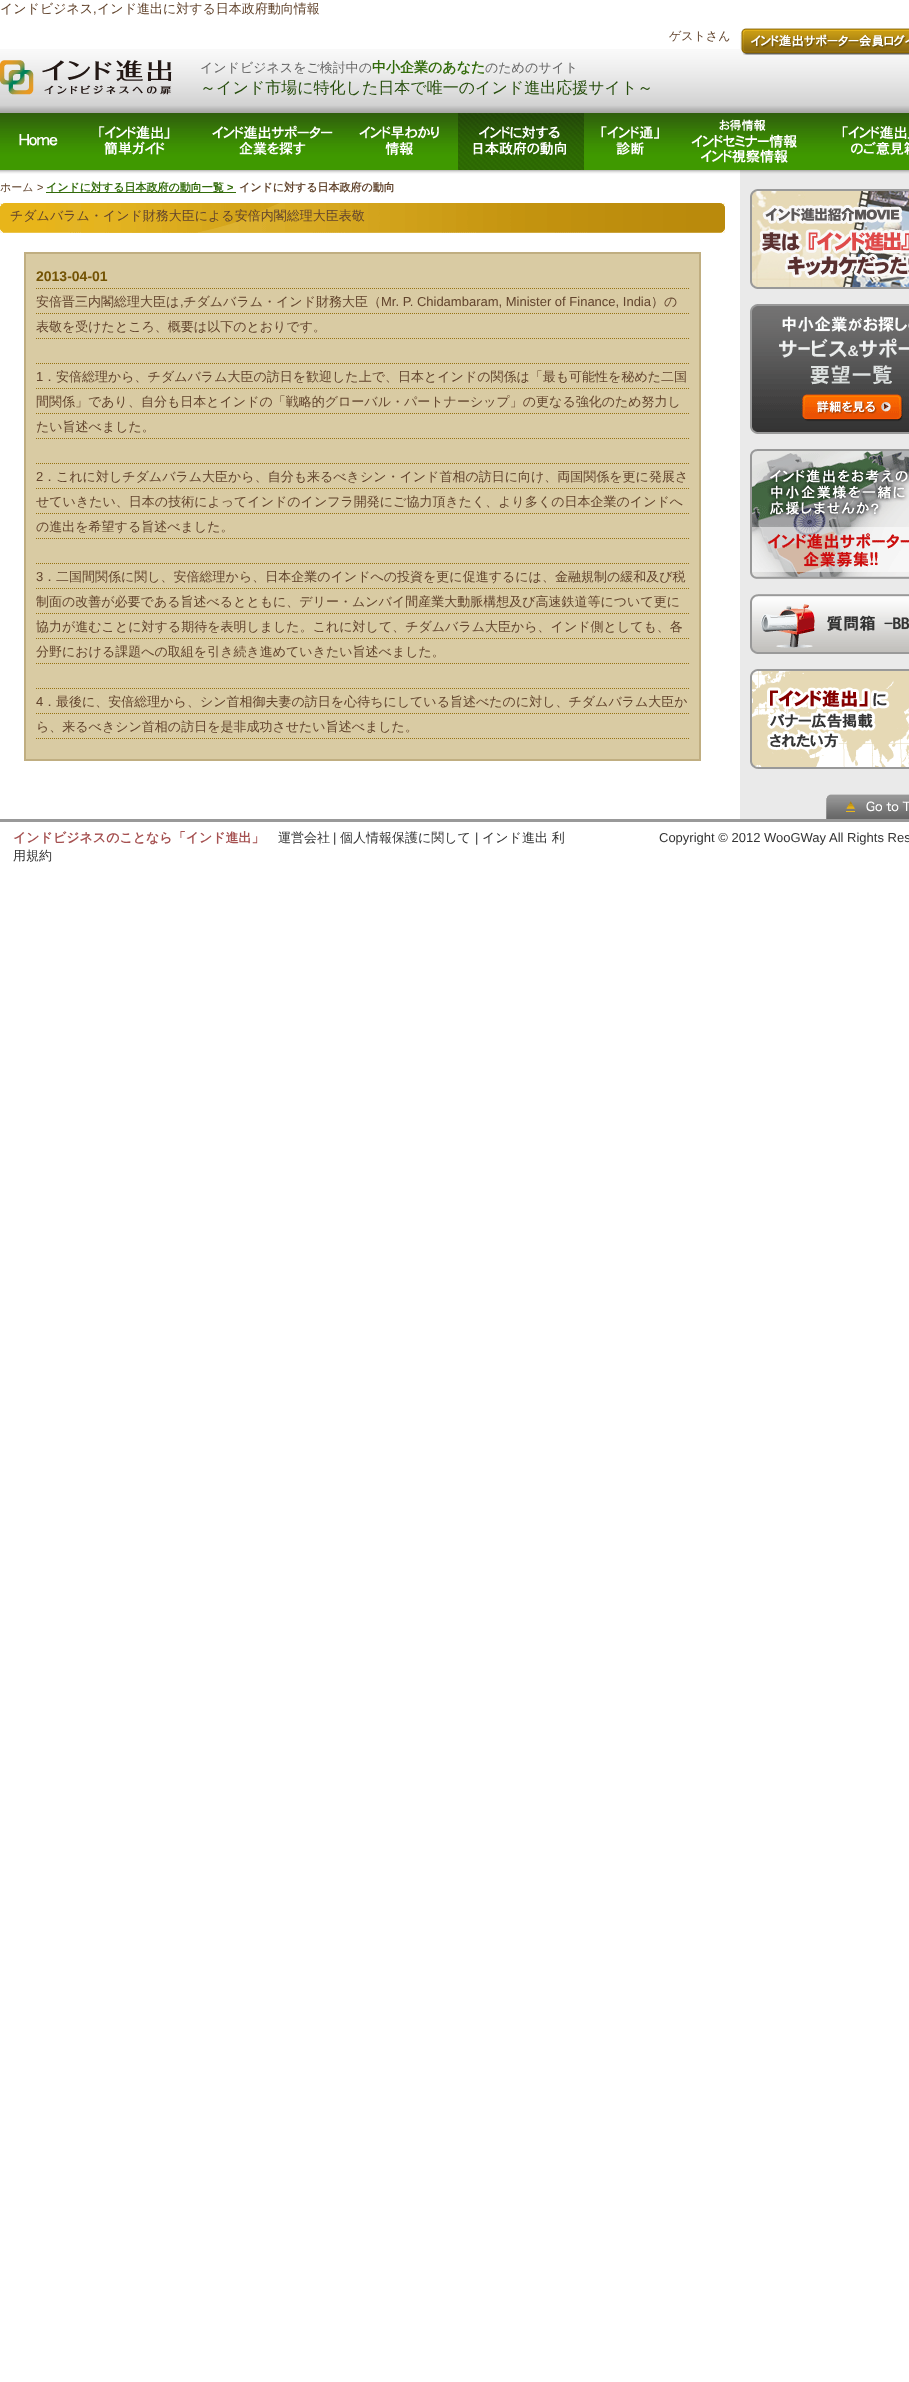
(async () => {
    const canvas = document.querySelector("canvas");
    canvas.width = 909;
    canvas.height = 2382;
    const context = canvas.getContext("2d");
    context.miterLimit = 4;
    context.fontKerning = "normal";
    function write(s, x, y, font, color) {
        context.font = font;
        context.fillStyle = color;
        context.fillText(s, x, y);
    }
    function block(x, y, w, h, color) {
        context.fillStyle = color;
        context.fillRect(x, y, w, h);
    }
    async function photo(src, x, y, w, h) {
        const img = new Image();
        img.src = src;
        await img.decode();
        context.drawImage(img, x, y, w, h);
    }

    block(0, 0, 909, 2382, "rgb(255, 255, 255)");
    write("インドビジネス インド進出に対する日本政府動向情報", 0, 13, "500 13px WenQuanYi Zen Hei", "rgb(98, 68, 45)");
    write(",", 93, 13, "13px Liberation Sans", "rgb(98, 68, 45)");
    await photo("media/1.png", 0, 49, 909, 64);
    write("ゲストさん", 669, 40, "500 12px WenQuanYi Zen Hei", "rgb(98, 68, 45)");
    await photo("media/2.png", 740, 28, 169, 27);
    await photo("media/3.png", 0, 60, 172, 35);
    write("インドビジネスをご検討中の", 200, 72, "500 13px WenQuanYi Zen Hei", "rgb(102, 102, 102)");
    write("中小企業のあなた", 372, 72, "bold 14px WenQuanYi Zen Hei", "rgb(50, 107, 10)");
    write("のためのサイト", 485, 72, "500 13px WenQuanYi Zen Hei", "rgb(102, 102, 102)");
    write("～インド市場に特化した日本で唯一のインド進出応援サイト～", 200, 93, "500 16px WenQuanYi Zen Hei", "rgb(38, 77, 12)");
    await photo("media/4.png", 0, 113, 74, 57);
    await photo("media/5.png", 74, 113, 125, 57);
    await photo("media/6.png", 199, 113, 150, 57);
    await photo("media/7.png", 349, 113, 109, 57);
    await photo("media/8.png", 458, 113, 126, 57);
    await photo("media/9.png", 584, 113, 92, 57);
    await photo("media/10.png", 676, 113, 137, 57);
    await photo("media/11.png", 813, 113, 96, 57);
    block(740, 174, 169, 645, "rgb(234, 234, 234)");
    await photo("media/12.png", 0, 170, 909, 4);
    write("ホーム", 0, 191, "500 11px WenQuanYi Zen Hei", "rgb(98, 68, 45)");
    write(">", 37, 191, "11px Liberation Sans", "rgb(98, 68, 45)");
    block(46, 192, 190, 1, "rgb(50, 107, 10)");
    write("インドに対する日本政府の動向一覧", 46, 191, "bold 11px WenQuanYi Zen Hei", "rgb(50, 107, 10)");
    write(">", 227, 191, "bold 11px Liberation Sans", "rgb(50, 107, 10)");
    write("インドに対する日本政府の動向", 239, 191, "bold 11px WenQuanYi Zen Hei", "rgb(98, 68, 45)");
    await photo("media/13.png", 0, 203, 725, 30);
    write("チダムバラム・インド財務大臣による安倍内閣総理大臣表敬", 10, 220, "500 13px WenQuanYi Zen Hei", "rgb(98, 68, 45)");
    context.fillStyle = "rgb(217, 203, 163)";
    context.beginPath();
    context.rect(25, 253, 675, 507);
    context.fill();
    context.strokeStyle = "rgb(192, 174, 129)";
    context.lineWidth = 2;
    context.stroke();
    await photo("media/14.png", 36, 288, 653, 1);
    write("2013-04-01", 36, 281, "bold 14px Liberation Sans", "rgb(115, 83, 4)");
    await photo("media/15.png", 36, 313, 653, 426);
    write("安倍晋三内閣総理大臣は チダムバラム・インド財務大臣（", 36, 306, "500 13px WenQuanYi Zen Hei", "rgb(98, 68, 45)");
    write("Mr. P. Chidambaram, Minister of Finance, India", 381, 306, "13px Liberation Sans", "rgb(98, 68, 45)");
    write("）の", 651, 306, "500 13px WenQuanYi Zen Hei", "rgb(98, 68, 45)");
    write(",", 180, 306, "13px Liberation Sans", "rgb(98, 68, 45)");
    write("表敬を受けたところ、概要は以下のとおりです。", 36, 331, "500 13px WenQuanYi Zen Hei", "rgb(98, 68, 45)");
    write("1", 36, 381, "13px Liberation Sans", "rgb(98, 68, 45)");
    write("．安倍総理から、チダムバラム大臣の訪日を歓迎した上で、日本とインドの関係は「最も可能性を秘めた二国", 43, 381, "500 13px WenQuanYi Zen Hei", "rgb(98, 68, 45)");
    write("間関係」であり、自分も日本とインドの「戦略的グローバル・パートナーシップ」の更なる強化のため努力し", 36, 406, "500 13px WenQuanYi Zen Hei", "rgb(98, 68, 45)");
    write("たい旨述べました。", 36, 431, "500 13px WenQuanYi Zen Hei", "rgb(98, 68, 45)");
    write("2", 36, 481, "13px Liberation Sans", "rgb(98, 68, 45)");
    write("．これに対しチダムバラム大臣から、自分も来るべきシン・インド首相の訪日に向け、両国関係を更に発展さ", 43, 481, "500 13px WenQuanYi Zen Hei", "rgb(98, 68, 45)");
    write("せていきたい、日本の技術によってインドのインフラ開発にご協力頂きたく、より多くの日本企業のインドへ", 36, 506, "500 13px WenQuanYi Zen Hei", "rgb(98, 68, 45)");
    write("の進出を希望する旨述べました。", 36, 531, "500 13px WenQuanYi Zen Hei", "rgb(98, 68, 45)");
    write("3", 36, 581, "13px Liberation Sans", "rgb(98, 68, 45)");
    write("．二国間関係に関し、安倍総理から、日本企業のインドへの投資を更に促進するには、金融規制の緩和及び税", 43, 581, "500 13px WenQuanYi Zen Hei", "rgb(98, 68, 45)");
    write("制面の改善が必要である旨述べるとともに、デリー・ムンバイ間産業大動脈構想及び高速鉄道等について更に", 36, 606, "500 13px WenQuanYi Zen Hei", "rgb(98, 68, 45)");
    write("協力が進むことに対する期待を表明しました。これに対して、チダムバラム大臣から、インド側としても、各", 36, 631, "500 13px WenQuanYi Zen Hei", "rgb(98, 68, 45)");
    write("分野における課題への取組を引き続き進めていきたい旨述べました。", 36, 656, "500 13px WenQuanYi Zen Hei", "rgb(98, 68, 45)");
    write("4", 36, 706, "13px Liberation Sans", "rgb(98, 68, 45)");
    write("．最後に、安倍総理から、シン首相御夫妻の訪日を心待ちにしている旨述べたのに対し、チダムバラム大臣か", 43, 706, "500 13px WenQuanYi Zen Hei", "rgb(98, 68, 45)");
    write("ら、来るべきシン首相の訪日を是非成功させたい旨述べました。", 36, 731, "500 13px WenQuanYi Zen Hei", "rgb(98, 68, 45)");
    await photo("media/16.png", 750, 189, 159, 100);
    await photo("media/17.png", 750, 304, 159, 130);
    await photo("media/18.png", 750, 449, 159, 130);
    await photo("media/19.png", 750, 594, 159, 60);
    await photo("media/20.png", 750, 669, 159, 100);
    await photo("media/21.png", 826, 794, 83, 25);
    block(0, 819, 909, 3, "rgb(153, 153, 153)");
    write("インドビジネスのことなら「インド進出」", 13, 842, "bold 13px WenQuanYi Zen Hei", "rgb(165, 80, 80)");
    write("運営会社", 278, 842, "500 13px WenQuanYi Zen Hei", "rgb(51, 51, 51)");
    write("|", 333, 842, "13px Liberation Sans", "rgb(51, 51, 51)");
    write("個人情報保護に関して", 340, 842, "500 13px WenQuanYi Zen Hei", "rgb(51, 51, 51)");
    write("|", 475, 842, "13px Liberation Sans", "rgb(51, 51, 51)");
    write("インド進出 利", 482, 842, "500 13px WenQuanYi Zen Hei", "rgb(51, 51, 51)");
    write("用規約", 13, 860, "500 13px WenQuanYi Zen Hei", "rgb(51, 51, 51)");
    write("Copyright © 2012 WooGWay All Rights Res", 659, 842, "13px Liberation Sans", "rgb(51, 51, 51)");
})();
